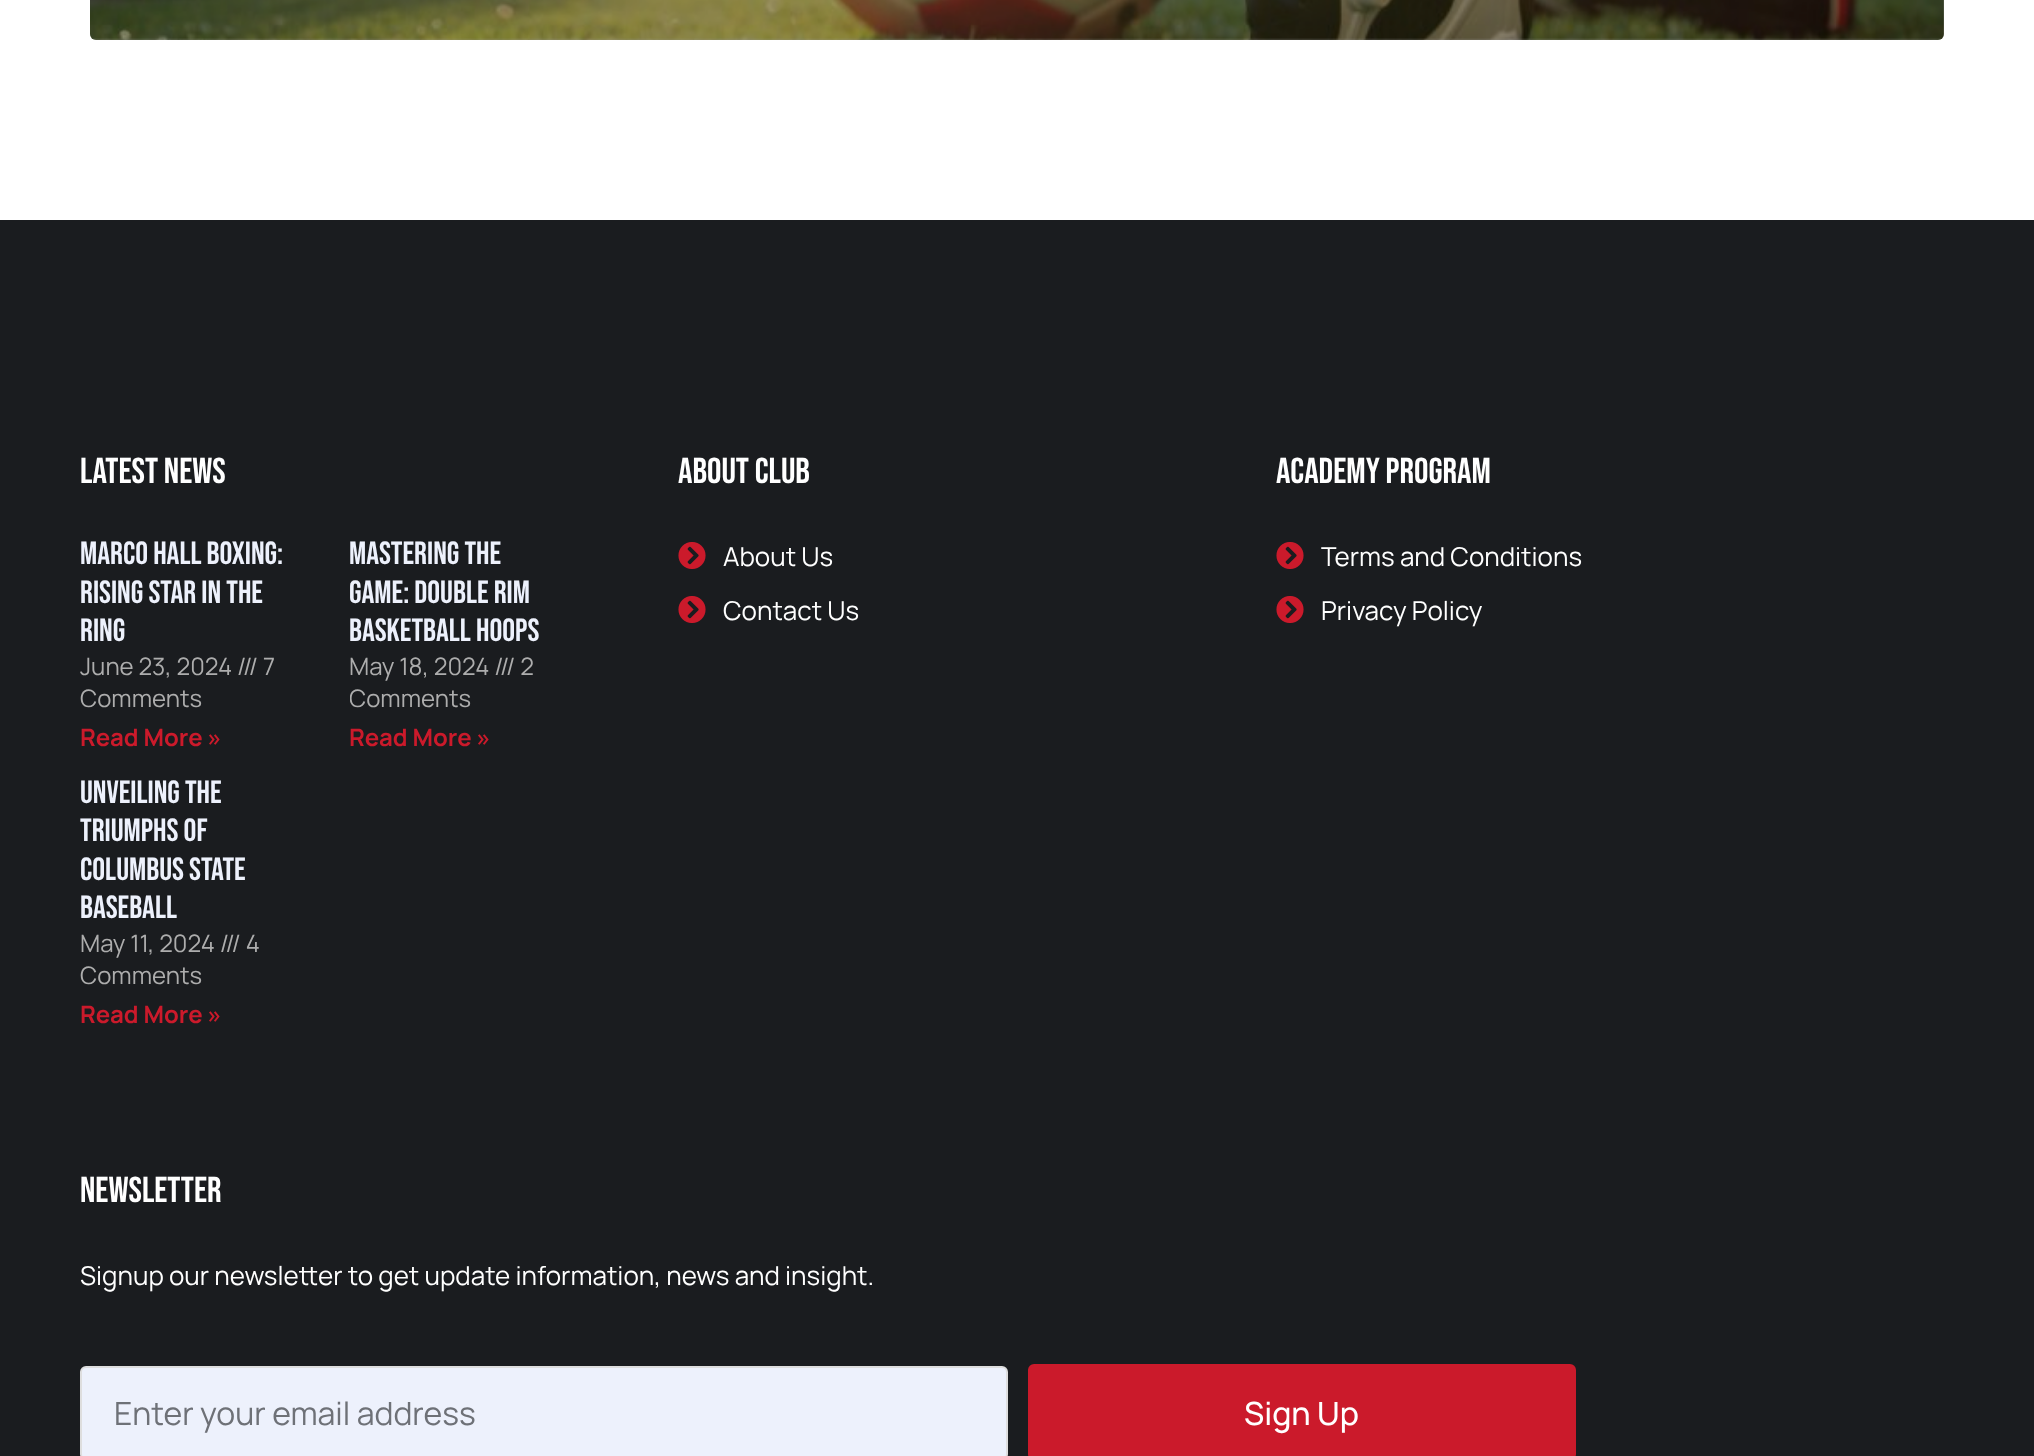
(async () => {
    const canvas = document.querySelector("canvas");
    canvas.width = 2034;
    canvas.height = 1456;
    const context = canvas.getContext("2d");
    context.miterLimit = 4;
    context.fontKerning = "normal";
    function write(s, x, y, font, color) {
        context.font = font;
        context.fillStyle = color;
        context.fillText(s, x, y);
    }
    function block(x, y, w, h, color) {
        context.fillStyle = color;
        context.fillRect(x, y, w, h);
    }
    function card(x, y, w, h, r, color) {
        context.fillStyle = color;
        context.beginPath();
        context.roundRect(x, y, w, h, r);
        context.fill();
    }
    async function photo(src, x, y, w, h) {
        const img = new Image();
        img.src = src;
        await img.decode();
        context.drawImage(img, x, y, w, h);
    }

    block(0, 0, 2034, 1456, "rgb(255, 255, 255)");
    await photo("media/1.png", 90, 0, 1854, 40);
    card(90, -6, 1854, 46, 6, "rgba(0, 0, 0, 0.4)");
    block(0, 220, 2034, 1236, "rgb(26, 28, 31)");
    write("Latest News", 80, 483, "36px Bebas Neue", "rgb(255, 255, 255)");
    write("Marco Hall Boxing:", 80, 564, "32px Bebas Neue", "rgb(237, 241, 252)");
    write("Rising Star in the", 80, 603, "32px Bebas Neue", "rgb(237, 241, 252)");
    write("Ring", 80, 641, "32px Bebas Neue", "rgb(237, 241, 252)");
    write("June 23, 2024 /// 7", 80, 675, "24px Manrope", "rgb(173, 173, 173)");
    write("Comments", 80, 707, "24px Manrope", "rgb(173, 173, 173)");
    write("Read More »", 80, 746, "bold 24px Manrope", "rgb(203, 26, 43)");
    write("Mastering the", 349, 564, "32px Bebas Neue", "rgb(237, 241, 252)");
    write("Game: Double Rim", 349, 603, "32px Bebas Neue", "rgb(237, 241, 252)");
    write("Basketball Hoops", 349, 641, "32px Bebas Neue", "rgb(237, 241, 252)");
    write("May 18, 2024 /// 2", 349, 675, "24px Manrope", "rgb(173, 173, 173)");
    context.save();
    context.beginPath();
    context.rect(350, 536, 208, 234);
    context.clip();
    write("Comments", 349, 707, "24px Manrope", "rgb(173, 173, 173)");
    context.restore();
    write("Read More »", 349, 746, "bold 24px Manrope", "rgb(203, 26, 43)");
    write("Unveiling the", 80, 803, "32px Bebas Neue", "rgb(237, 241, 252)");
    write("Triumphs of", 80, 841, "32px Bebas Neue", "rgb(237, 241, 252)");
    write("Columbus State", 80, 880, "32px Bebas Neue", "rgb(237, 241, 252)");
    write("Baseball", 80, 918, "32px Bebas Neue", "rgb(237, 241, 252)");
    write("May 11, 2024 /// 4", 80, 952, "24px Manrope", "rgb(173, 173, 173)");
    write("Comments", 80, 984, "24px Manrope", "rgb(173, 173, 173)");
    write("Read More »", 80, 1023, "bold 24px Manrope", "rgb(203, 26, 43)");
    write("About Club", 678, 483, "36px Bebas Neue", "rgb(255, 255, 255)");
    await photo("media/2.png", 678, 542, 28, 27);
    write("About Us", 723, 566, "26px Manrope", "rgb(255, 255, 255)");
    await photo("media/2.png", 678, 596, 28, 27);
    write("Contact Us", 723, 620, "26px Manrope", "rgb(255, 255, 255)");
    write("Academy Program", 1276, 483, "36px Bebas Neue", "rgb(255, 255, 255)");
    await photo("media/2.png", 1276, 542, 28, 27);
    write("Terms and Conditions", 1321, 566, "26px Manrope", "rgb(255, 255, 255)");
    await photo("media/2.png", 1276, 596, 28, 27);
    write("Privacy Policy", 1321, 620, "26px Manrope", "rgb(255, 255, 255)");
    write("Newsletter", 80, 1202, "36px Bebas Neue", "rgb(255, 255, 255)");
    write("Signup our newsletter to get update information, news and insight.", 80, 1285, "26px Manrope", "rgb(255, 255, 255)");
    context.fillStyle = "rgb(237, 241, 252)";
    context.beginPath();
    context.roundRect(81, 1367, 926, 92, 5);
    context.fill();
    context.strokeStyle = "rgb(222, 222, 222)";
    context.lineWidth = 2;
    context.stroke();
    write("Enter your email address", 114, 1425, "32px Manrope", "rgb(110, 113, 119)");
    context.fillStyle = "rgb(203, 26, 43)";
    context.beginPath();
    context.roundRect(1029, 1365, 546, 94, 5);
    context.fill();
    context.strokeStyle = "rgb(203, 26, 43)";
    context.stroke();
    write("Sign Up", 1244, 1425, "500 32px Manrope", "rgb(255, 255, 255)");
})();
